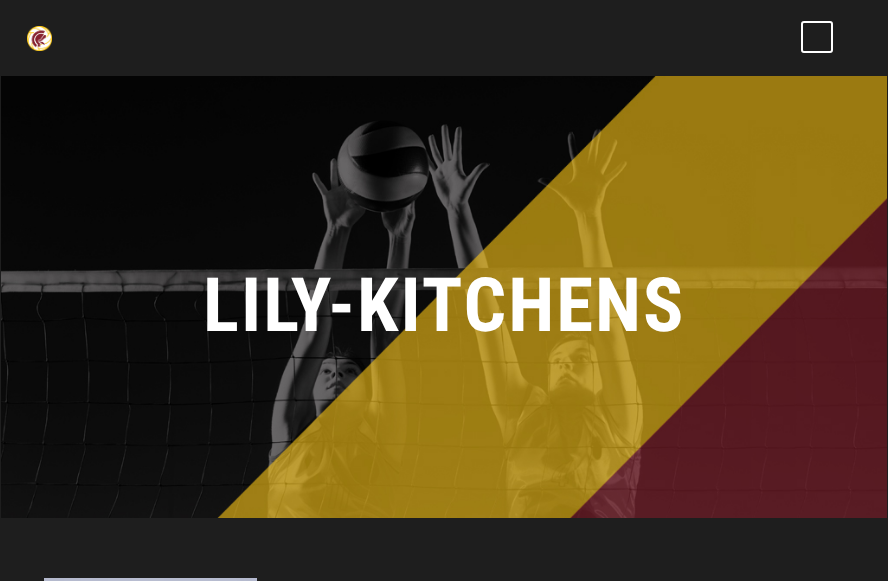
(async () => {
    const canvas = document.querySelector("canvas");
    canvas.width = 888;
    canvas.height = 581;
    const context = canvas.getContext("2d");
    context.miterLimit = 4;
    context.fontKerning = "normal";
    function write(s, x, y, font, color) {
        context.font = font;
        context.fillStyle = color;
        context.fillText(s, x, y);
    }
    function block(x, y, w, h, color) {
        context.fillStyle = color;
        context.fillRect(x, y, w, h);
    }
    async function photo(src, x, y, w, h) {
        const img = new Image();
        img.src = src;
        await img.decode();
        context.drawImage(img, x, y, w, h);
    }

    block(0, 0, 888, 581, "rgb(30, 30, 30)");
    await photo("media/1.png", 27, 26, 25, 25);
    context.beginPath();
    context.roundRect(802, 22, 30, 30, 2);
    context.strokeStyle = "rgb(255, 255, 255)";
    context.lineWidth = 2;
    context.stroke();
    await photo("media/2.png", 1, 76, 886, 442);
    context.letterSpacing = "2px";
    write("LILY-KITCHENS", 203, 331, "bold 75px Roboto Condensed", "rgb(255, 255, 255)");
    await photo("media/3.png", 44, 578, 213, 3);
})();
